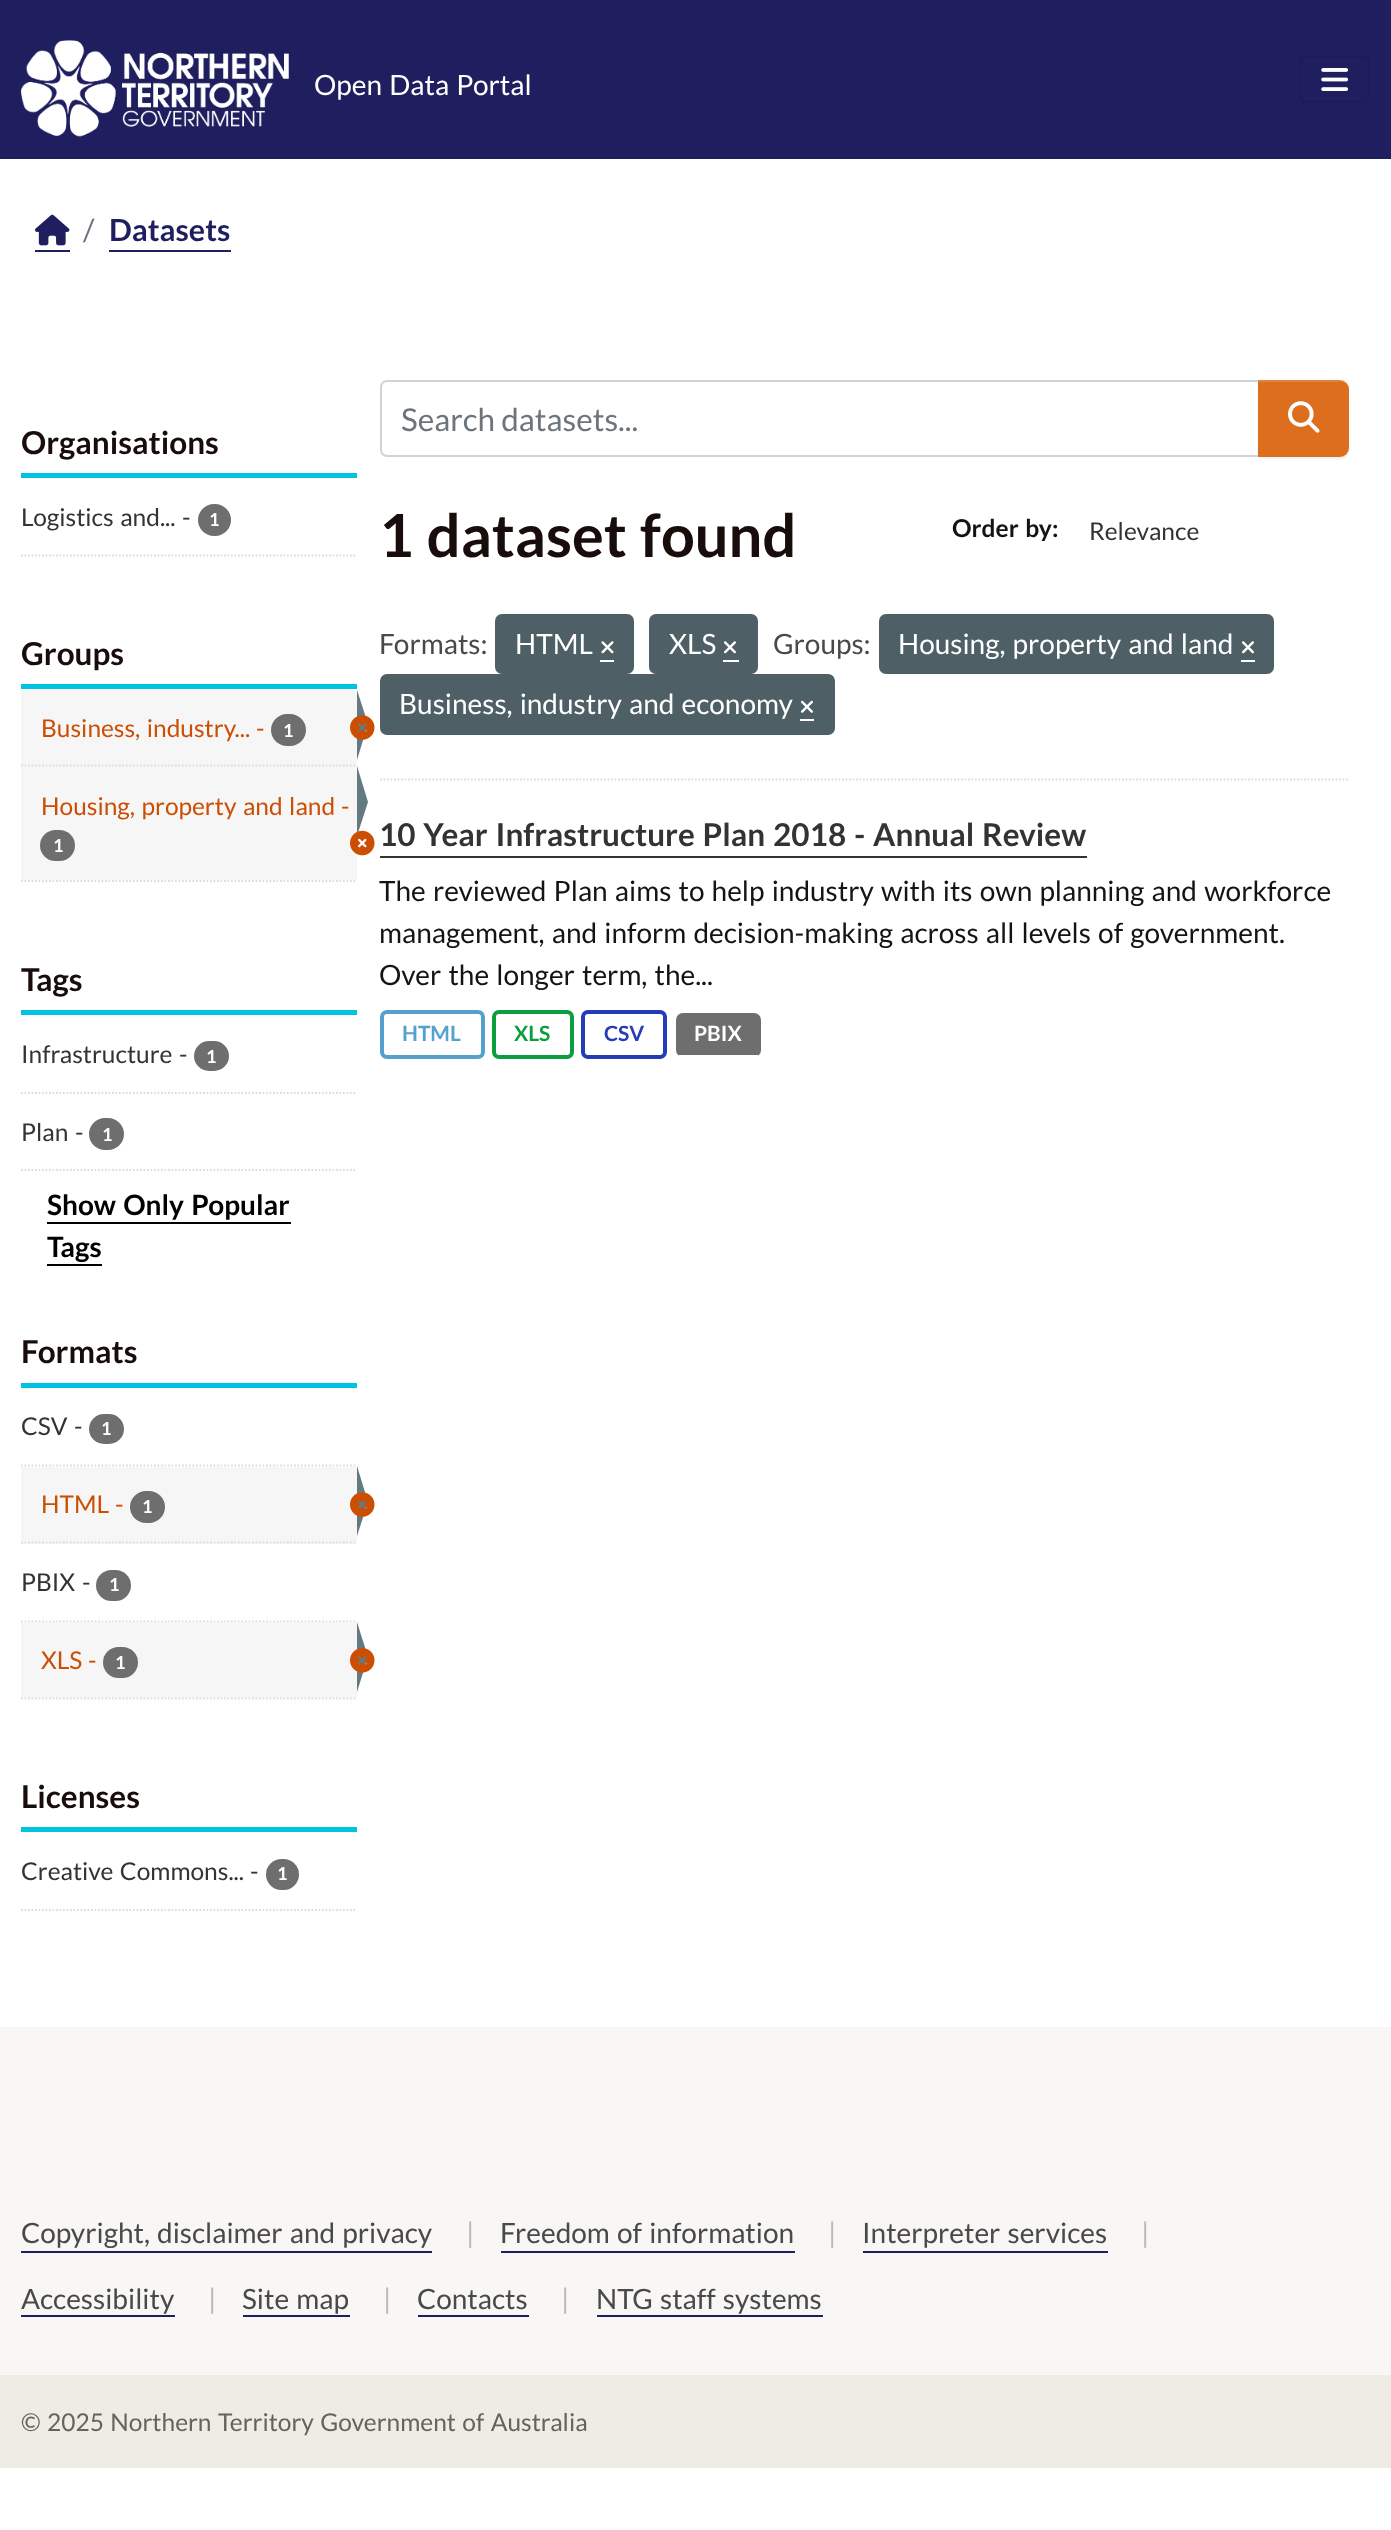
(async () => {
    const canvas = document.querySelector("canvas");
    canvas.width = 1391;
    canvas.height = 2530;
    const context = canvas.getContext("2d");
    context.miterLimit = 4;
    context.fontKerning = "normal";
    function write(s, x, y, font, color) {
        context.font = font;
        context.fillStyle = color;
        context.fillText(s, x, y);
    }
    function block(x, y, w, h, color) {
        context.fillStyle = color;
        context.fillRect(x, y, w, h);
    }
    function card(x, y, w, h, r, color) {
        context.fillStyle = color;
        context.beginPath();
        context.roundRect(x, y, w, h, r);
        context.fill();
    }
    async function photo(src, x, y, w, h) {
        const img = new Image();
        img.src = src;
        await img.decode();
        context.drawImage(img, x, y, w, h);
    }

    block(0, 0, 1391, 2530, "rgb(255, 255, 255)");
    block(0, 0, 1391, 159, "rgb(31, 31, 95)");
    await photo("media/1.png", 21, 40, 268, 97);
    context.wordSpacing = "1.75px";
    write("Open Data Portal", 314, 95, "28px Lato", "rgb(255, 255, 255)");
    context.beginPath();
    context.roundRect(1300, 57, 69, 45, 6);
    context.strokeStyle = "rgb(28, 28, 86)";
    context.lineWidth = 2;
    context.stroke();
    await photo("media/2.png", 1321, 68, 27, 23);
    block(35, 250, 35, 2, "rgb(31, 31, 95)");
    await photo("media/3.png", 35, 214, 35, 32);
    context.wordSpacing = "0px";
    write("/", 83, 241, "30.5px Lato", "rgb(108, 117, 125)");
    write("Datasets", 109, 241, "bold 30.5px Lato", "rgb(31, 31, 95)");
    block(109, 250, 122, 2, "rgb(31, 31, 95)");
    block(21, 473, 336, 5, "rgb(0, 195, 226)");
    write("Organisations", 21, 454, "bold 31.5px Lato", "rgb(24, 13, 10)");
    context.wordSpacing = "1.75px";
    write("Logistics and...", 21, 526, "24.5px Lato", "rgb(51, 51, 51)");
    context.wordSpacing = "0px";
    write("-", 182, 526, "24.5px Lato", "rgb(51, 51, 51)");
    card(198, 504, 33, 32, 16, "rgb(110, 110, 110)");
    write("1", 209, 526, "bold 18px Lato", "rgb(255, 255, 255)");
    context.beginPath();
    context.moveTo(21, 555.5);
    context.lineTo(357, 555.5);
    context.strokeStyle = "rgb(221, 221, 221)";
    context.lineWidth = 1.8;
    context.setLineDash([1.75, 1.75]);
    context.stroke();
    block(21, 684, 336, 5, "rgb(0, 195, 226)");
    write("Groups", 21, 665, "bold 31.5px Lato", "rgb(24, 13, 10)");
    block(21, 690, 336, 190, "rgb(246, 246, 246)");
    context.beginPath();
    context.moveTo(21, 765.5);
    context.lineTo(357, 765.5);
    context.stroke();
    context.fillStyle = "rgb(100, 122, 130)";
    context.beginPath();
    context.moveTo(357, 760);
    context.lineTo(357, 690);
    context.lineTo(368, 724);
    context.closePath();
    context.fill();
    context.wordSpacing = "1.75px";
    write("Business, industry...", 41, 737, "24.5px Lato", "rgb(204, 78, 2)");
    context.wordSpacing = "0px";
    write("-", 256, 737, "24.5px Lato", "rgb(204, 78, 2)");
    card(271, 714, 35, 32, 16, "rgb(110, 110, 110)");
    write("1", 283, 737, "bold 18px Lato", "rgb(255, 255, 255)");
    await photo("media/4.png", 350, 715, 25, 25);
    context.wordSpacing = "1.75px";
    write("Housing, property and land", 41, 815, "24.5px Lato", "rgb(204, 78, 2)");
    context.wordSpacing = "0px";
    write("-", 341, 815, "24.5px Lato", "rgb(204, 78, 2)");
    context.fillStyle = "rgb(100, 122, 130)";
    context.beginPath();
    context.moveTo(357, 836);
    context.lineTo(357, 766);
    context.lineTo(368, 802);
    context.closePath();
    context.fill();
    card(40, 830, 35, 31, 15.5, "rgb(110, 110, 110)");
    write("1", 53, 852, "bold 18px Lato", "rgb(255, 255, 255)");
    await photo("media/5.png", 350, 830, 25, 26);
    context.beginPath();
    context.moveTo(21, 881);
    context.lineTo(357, 881);
    context.stroke();
    block(21, 1010, 336, 5, "rgb(0, 195, 226)");
    write("Tags", 21, 991, "bold 31.5px Lato", "rgb(24, 13, 10)");
    context.beginPath();
    context.moveTo(21, 1093);
    context.lineTo(357, 1093);
    context.stroke();
    write("Infrastructure", 21, 1063, "24.5px Lato", "rgb(51, 51, 51)");
    write("-", 179, 1063, "24.5px Lato", "rgb(51, 51, 51)");
    card(194, 1041, 35, 30, 15, "rgb(110, 110, 110)");
    write("1", 206, 1063, "bold 18px Lato", "rgb(255, 255, 255)");
    write("Plan", 21, 1141, "24.5px Lato", "rgb(51, 51, 51)");
    write("-", 75, 1141, "24.5px Lato", "rgb(51, 51, 51)");
    card(89, 1118, 35, 32, 16, "rgb(110, 110, 110)");
    write("1", 102, 1141, "bold 18px Lato", "rgb(255, 255, 255)");
    context.beginPath();
    context.moveTo(21, 1170);
    context.lineTo(357, 1170);
    context.stroke();
    context.wordSpacing = "1.75px";
    write("Show Only Popular", 47, 1215, "bold 28px Lato", "rgb(0, 0, 0)");
    block(47, 1222, 244, 2, "rgb(0, 0, 0)");
    context.wordSpacing = "0px";
    write("Tags", 47, 1257, "bold 28px Lato", "rgb(0, 0, 0)");
    block(47, 1264, 55, 2, "rgb(0, 0, 0)");
    block(21, 1383, 336, 5, "rgb(0, 195, 226)");
    write("Formats", 21, 1363, "bold 31.5px Lato", "rgb(24, 13, 10)");
    context.beginPath();
    context.moveTo(21, 1465.5);
    context.lineTo(357, 1465.5);
    context.stroke();
    write("CSV", 21, 1435, "24.5px Lato", "rgb(51, 51, 51)");
    write("-", 74, 1435, "24.5px Lato", "rgb(51, 51, 51)");
    card(89, 1414, 35, 30, 15, "rgb(110, 110, 110)");
    write("1", 101, 1435, "bold 18px Lato", "rgb(255, 255, 255)");
    block(21, 1467, 336, 77, "rgb(246, 246, 246)");
    context.beginPath();
    context.moveTo(21, 1542.5);
    context.lineTo(357, 1542.5);
    context.stroke();
    context.fillStyle = "rgb(100, 122, 130)";
    context.beginPath();
    context.moveTo(357, 1536);
    context.lineTo(357, 1466);
    context.lineTo(368, 1502);
    context.closePath();
    context.fill();
    write("HTML", 41, 1513, "24.5px Lato", "rgb(204, 78, 2)");
    write("-", 115, 1513, "24.5px Lato", "rgb(204, 78, 2)");
    card(130, 1491, 35, 32, 16, "rgb(110, 110, 110)");
    write("1", 142, 1513, "bold 18px Lato", "rgb(255, 255, 255)");
    await photo("media/6.png", 350, 1492, 25, 25);
    context.beginPath();
    context.moveTo(21, 1621.5);
    context.lineTo(357, 1621.5);
    context.stroke();
    write("PBIX", 21, 1591, "24.5px Lato", "rgb(51, 51, 51)");
    write("-", 82, 1591, "24.5px Lato", "rgb(51, 51, 51)");
    card(96, 1570, 35, 31, 15.5, "rgb(110, 110, 110)");
    write("1", 109, 1591, "bold 18px Lato", "rgb(255, 255, 255)");
    block(21, 1622, 336, 76, "rgb(246, 246, 246)");
    context.fillStyle = "rgb(100, 122, 130)";
    context.beginPath();
    context.moveTo(357, 1692);
    context.lineTo(357, 1622);
    context.lineTo(368, 1657);
    context.closePath();
    context.fill();
    write("XLS", 41, 1669, "24.5px Lato", "rgb(204, 78, 2)");
    write("-", 88, 1669, "24.5px Lato", "rgb(204, 78, 2)");
    card(103, 1647, 35, 31, 15.5, "rgb(110, 110, 110)");
    write("1", 115, 1669, "bold 18px Lato", "rgb(255, 255, 255)");
    await photo("media/7.png", 350, 1648, 25, 25);
    context.beginPath();
    context.moveTo(21, 1698.5);
    context.lineTo(357, 1698.5);
    context.stroke();
    block(21, 1827, 336, 5, "rgb(0, 195, 226)");
    write("Licenses", 21, 1808, "bold 31.5px Lato", "rgb(24, 13, 10)");
    context.wordSpacing = "1.75px";
    write("Creative Commons...", 21, 1880, "24.5px Lato", "rgb(51, 51, 51)");
    context.wordSpacing = "0px";
    write("-", 250, 1880, "24.5px Lato", "rgb(51, 51, 51)");
    card(266, 1859, 33, 31, 15.5, "rgb(110, 110, 110)");
    write("1", 277, 1880, "bold 18px Lato", "rgb(255, 255, 255)");
    context.beginPath();
    context.moveTo(21, 1910);
    context.lineTo(357, 1910);
    context.stroke();
    context.beginPath();
    context.moveTo(380, 779.5);
    context.lineTo(1349, 779.5);
    context.stroke();
    context.beginPath();
    context.roundRect(381, 381, 878, 75, [6, 0, 0, 6]);
    context.strokeStyle = "rgb(206, 212, 218)";
    context.lineWidth = 2;
    context.setLineDash([]);
    context.stroke();
    write("Search datasets...", 401, 431, "31.5px Lato", "rgb(108, 117, 125)");
    context.fillStyle = "rgba(0, 0, 0, 0.07)";
    context.filter = "blur(1px)";
    context.beginPath();
    context.roundRect(1258, 382, 91, 77, 9);
    context.fill();
    context.filter = "none";
    context.fillStyle = "rgb(221, 110, 29)";
    context.beginPath();
    context.roundRect(1258, 380, 91, 77, [0, 9, 9, 0]);
    context.fill();
    context.fillStyle = "rgba(255, 255, 255, 0.15)";
    context.beginPath();
    context.moveTo(1258, 382);
    context.lineTo(1341, 382);
    context.bezierCurveTo(1345, 382, 1349, 385, 1349, 390);
    context.lineTo(1349, 389);
    context.bezierCurveTo(1349, 384, 1345, 380, 1340, 380);
    context.lineTo(1258, 380);
    context.closePath();
    context.fill();
    await photo("media/8.png", 1288, 401, 32, 32);
    context.wordSpacing = "1.75px";
    write("1 dataset found", 379, 557, "bold 59.5px Lato", "rgb(24, 13, 10)");
    write("Order by", 952, 537, "bold 24.5px Lato", "rgb(20, 20, 20)");
    context.wordSpacing = "0px";
    write(":", 1052, 537, "bold 24.5px Lato", "rgb(20, 20, 20)");
    write("Relevance", 1089, 540, "24.5px Lato", "rgb(51, 51, 51)");
    write("Formats:", 379, 654, "28px Lato", "rgb(73, 73, 73)");
    card(495, 614, 139, 60, 7, "rgb(78, 95, 101)");
    write("HTML", 515, 654, "28px Lato", "rgb(255, 255, 255)");
    block(600, 660, 14, 2, "rgb(255, 255, 255)");
    await photo("media/9.png", 601, 641, 13, 13);
    card(649, 614, 109, 60, 7, "rgb(78, 95, 101)");
    write("XLS", 669, 654, "28px Lato", "rgb(255, 255, 255)");
    block(723, 660, 16, 2, "rgb(255, 255, 255)");
    await photo("media/10.png", 724, 641, 12, 13);
    write("Groups:", 773, 654, "28px Lato", "rgb(73, 73, 73)");
    card(879, 614, 395, 60, 7, "rgb(78, 95, 101)");
    context.wordSpacing = "1.75px";
    write("Housing, property and land", 898, 654, "28px Lato", "rgb(255, 255, 255)");
    block(1241, 660, 14, 2, "rgb(255, 255, 255)");
    await photo("media/10.png", 1242, 641, 12, 13);
    card(380, 674, 455, 61, 7, "rgb(78, 95, 101)");
    write("Business, industry and economy", 399, 714, "28px Lato", "rgb(255, 255, 255)");
    block(800, 719, 14, 2, "rgb(255, 255, 255)");
    await photo("media/11.png", 801, 700, 12, 13);
    write("10 Year Infrastructure Plan 2018 - Annual Review", 379, 846, "bold 31.5px Lato", "rgb(51, 51, 51)");
    block(380, 856, 707, 2, "rgb(51, 51, 51)");
    write("The reviewed Plan aims to help industry with its own planning and workforce", 379, 901, "28px Lato", "rgb(20, 20, 20)");
    write("management, and inform decision-making across all levels of government.", 379, 943, "28px Lato", "rgb(20, 20, 20)");
    write("Over the longer term, the...", 379, 985, "28px Lato", "rgb(20, 20, 20)");
    context.beginPath();
    context.roundRect(382, 1012, 101, 45, 5);
    context.strokeStyle = "rgb(85, 161, 206)";
    context.lineWidth = 4;
    context.stroke();
    context.wordSpacing = "0px";
    write("HTML", 402, 1041, "bold 21px Lato", "rgb(85, 161, 206)");
    context.beginPath();
    context.roundRect(494, 1012, 78, 45, 5);
    context.strokeStyle = "rgb(10, 158, 62)";
    context.stroke();
    write("XLS", 514, 1041, "bold 21px Lato", "rgb(10, 158, 62)");
    context.beginPath();
    context.roundRect(583, 1012, 82, 45, 5);
    context.strokeStyle = "rgb(36, 61, 183)";
    context.stroke();
    write("CSV", 604, 1041, "bold 21px Lato", "rgb(36, 61, 183)");
    card(676, 1013, 85, 44, 7, "rgb(110, 110, 110)");
    block(679, 1055, 79, 2, "rgb(255, 255, 255)");
    write("PBIX", 694, 1041, "bold 21px Lato", "rgb(255, 255, 255)");
    block(0, 2027, 1391, 348, "rgb(248, 247, 245)");
    context.wordSpacing = "1.75px";
    write("Copyright, disclaimer and privacy", 21, 2243, "28px Lato", "rgb(73, 73, 73)");
    block(21, 2251, 411, 2, "rgb(31, 31, 95)");
    context.wordSpacing = "0px";
    write("|", 466, 2243, "28px Lato", "rgb(185, 185, 185)");
    context.wordSpacing = "1.75px";
    write("Freedom of information", 500, 2243, "28px Lato", "rgb(73, 73, 73)");
    block(501, 2251, 294, 2, "rgb(31, 31, 95)");
    context.wordSpacing = "0px";
    write("|", 828, 2243, "28px Lato", "rgb(185, 185, 185)");
    context.wordSpacing = "1.75px";
    write("Interpreter services", 862, 2243, "28px Lato", "rgb(73, 73, 73)");
    block(863, 2251, 245, 2, "rgb(31, 31, 95)");
    context.wordSpacing = "0px";
    write("|", 1141, 2243, "28px Lato", "rgb(185, 185, 185)");
    write("Accessibility", 21, 2309, "28px Lato", "rgb(73, 73, 73)");
    block(21, 2315, 154, 2, "rgb(31, 31, 95)");
    write("|", 208, 2309, "28px Lato", "rgb(185, 185, 185)");
    context.wordSpacing = "1.75px";
    write("Site map", 242, 2309, "28px Lato", "rgb(73, 73, 73)");
    block(243, 2315, 107, 2, "rgb(31, 31, 95)");
    context.wordSpacing = "0px";
    write("|", 383, 2309, "28px Lato", "rgb(185, 185, 185)");
    write("Contacts", 417, 2309, "28px Lato", "rgb(73, 73, 73)");
    block(418, 2315, 111, 2, "rgb(31, 31, 95)");
    write("|", 561, 2309, "28px Lato", "rgb(185, 185, 185)");
    context.wordSpacing = "1.75px";
    write("NTG staff systems", 596, 2309, "28px Lato", "rgb(73, 73, 73)");
    block(597, 2315, 226, 2, "rgb(31, 31, 95)");
    block(0, 2375, 1391, 93, "rgb(239, 236, 230)");
    write("© 2025 Northern Territory Government of Australia", 21, 2431, "24.5px Lato", "rgb(100, 99, 92)");
})();
